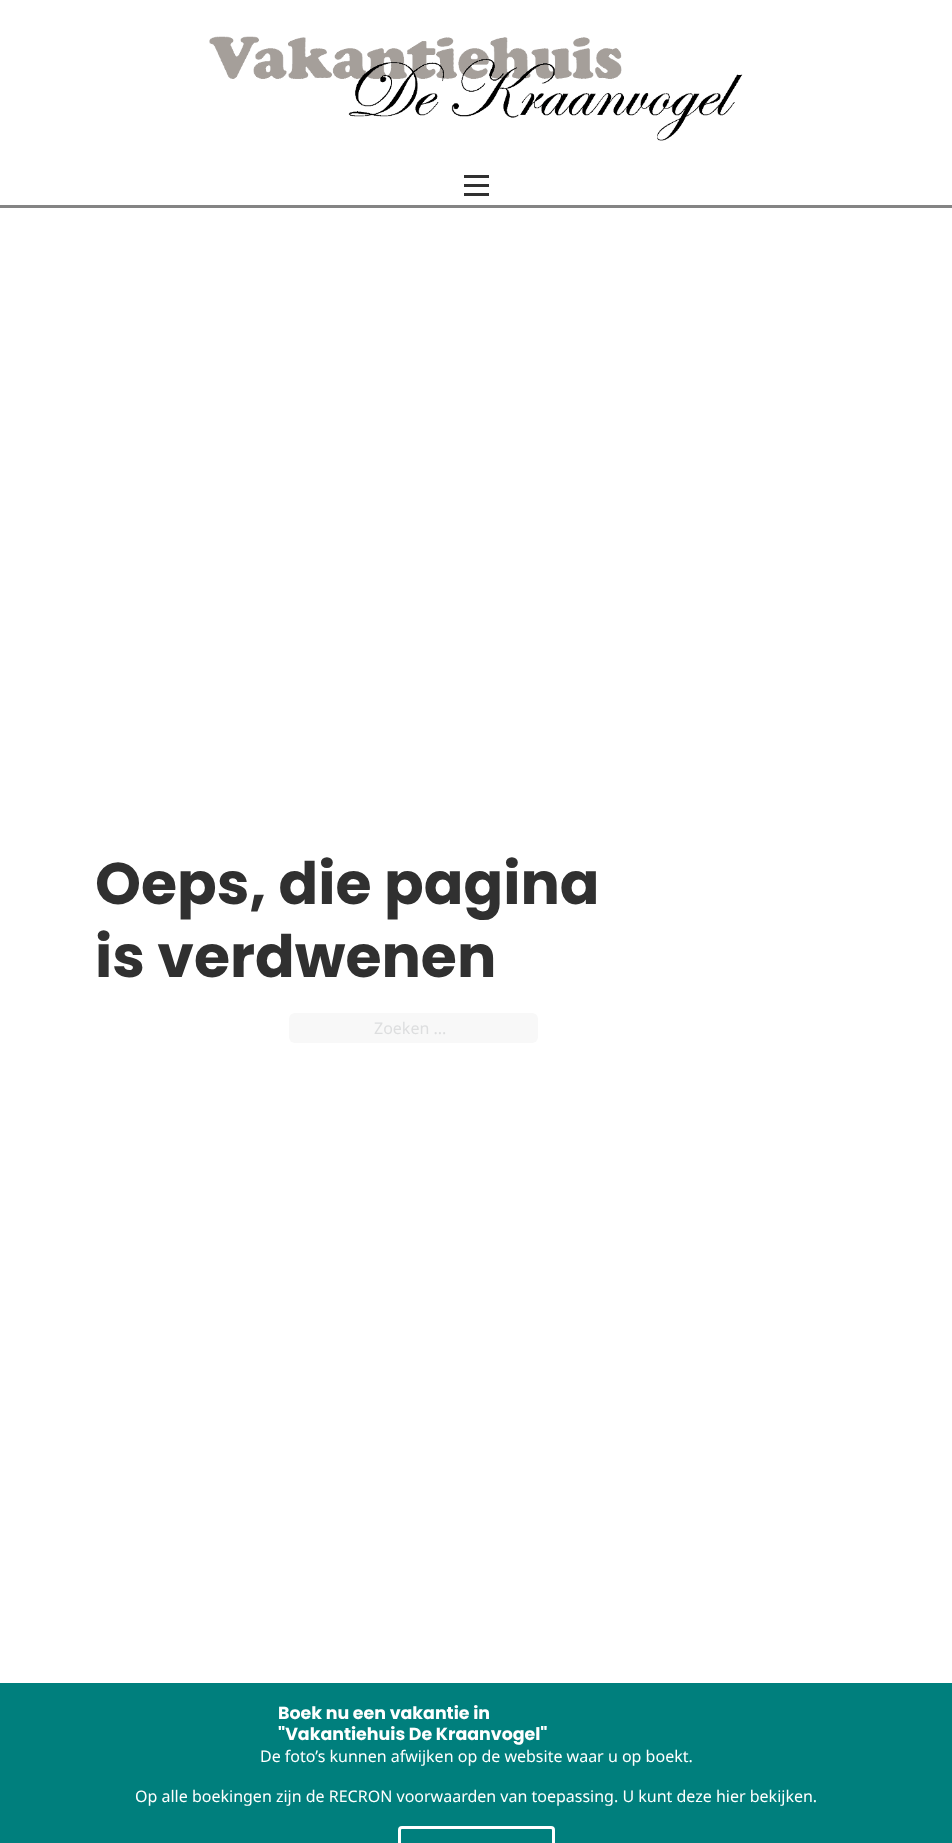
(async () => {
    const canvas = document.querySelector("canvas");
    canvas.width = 952;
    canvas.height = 1843;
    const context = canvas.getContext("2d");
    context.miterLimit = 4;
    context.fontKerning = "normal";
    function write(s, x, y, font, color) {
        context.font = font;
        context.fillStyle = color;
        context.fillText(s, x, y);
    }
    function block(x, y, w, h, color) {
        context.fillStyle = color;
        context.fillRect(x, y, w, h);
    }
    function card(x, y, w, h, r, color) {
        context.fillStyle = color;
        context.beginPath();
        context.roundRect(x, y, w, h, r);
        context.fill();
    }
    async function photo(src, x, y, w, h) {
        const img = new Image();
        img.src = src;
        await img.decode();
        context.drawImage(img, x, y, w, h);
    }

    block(0, 0, 952, 1843, "rgb(255, 255, 255)");
    block(0, 205, 952, 3, "rgb(132, 132, 132)");
    await photo("media/1.png", 209, 36, 534, 105);
    block(464, 175, 25, 3, "rgb(48, 48, 48)");
    block(464, 184, 25, 3, "rgb(48, 48, 48)");
    block(464, 193, 25, 3, "rgb(48, 48, 48)");
    write("Oeps, die pagina", 95, 904, "bold 58.5px Poppins", "rgb(48, 48, 48)");
    write("is verdwenen", 95, 977, "bold 58.5px Poppins", "rgb(48, 48, 48)");
    card(289, 1013, 249, 30, 6, "rgb(248, 248, 248)");
    write("Zoeken ...", 374, 1034, "16px Noto Sans", "rgb(221, 222, 223)");
    block(0, 1683, 952, 160, "rgb(0, 127, 125)");
    write("Boek nu een vakantie in", 278, 1719, "bold 17.4px Poppins", "rgb(255, 255, 255)");
    write("\"Vakantiehuis De Kraanvogel\"", 278, 1740, "bold 17.4px Poppins", "rgb(255, 255, 255)");
    write("De foto’s kunnen afwijken op de website waar u op boekt.", 260, 1762, "16px Noto Sans", "rgb(255, 255, 255)");
    write("Op alle boekingen zijn de RECRON voorwaarden van toepassing. U kunt deze hier bekijken.", 135, 1802, "16px Noto Sans", "rgb(255, 255, 255)");
    context.beginPath();
    context.roundRect(399.5, 1827.5, 154, 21, 2.5);
    context.strokeStyle = "rgb(255, 255, 255)";
    context.lineWidth = 3;
    context.stroke();
})();
